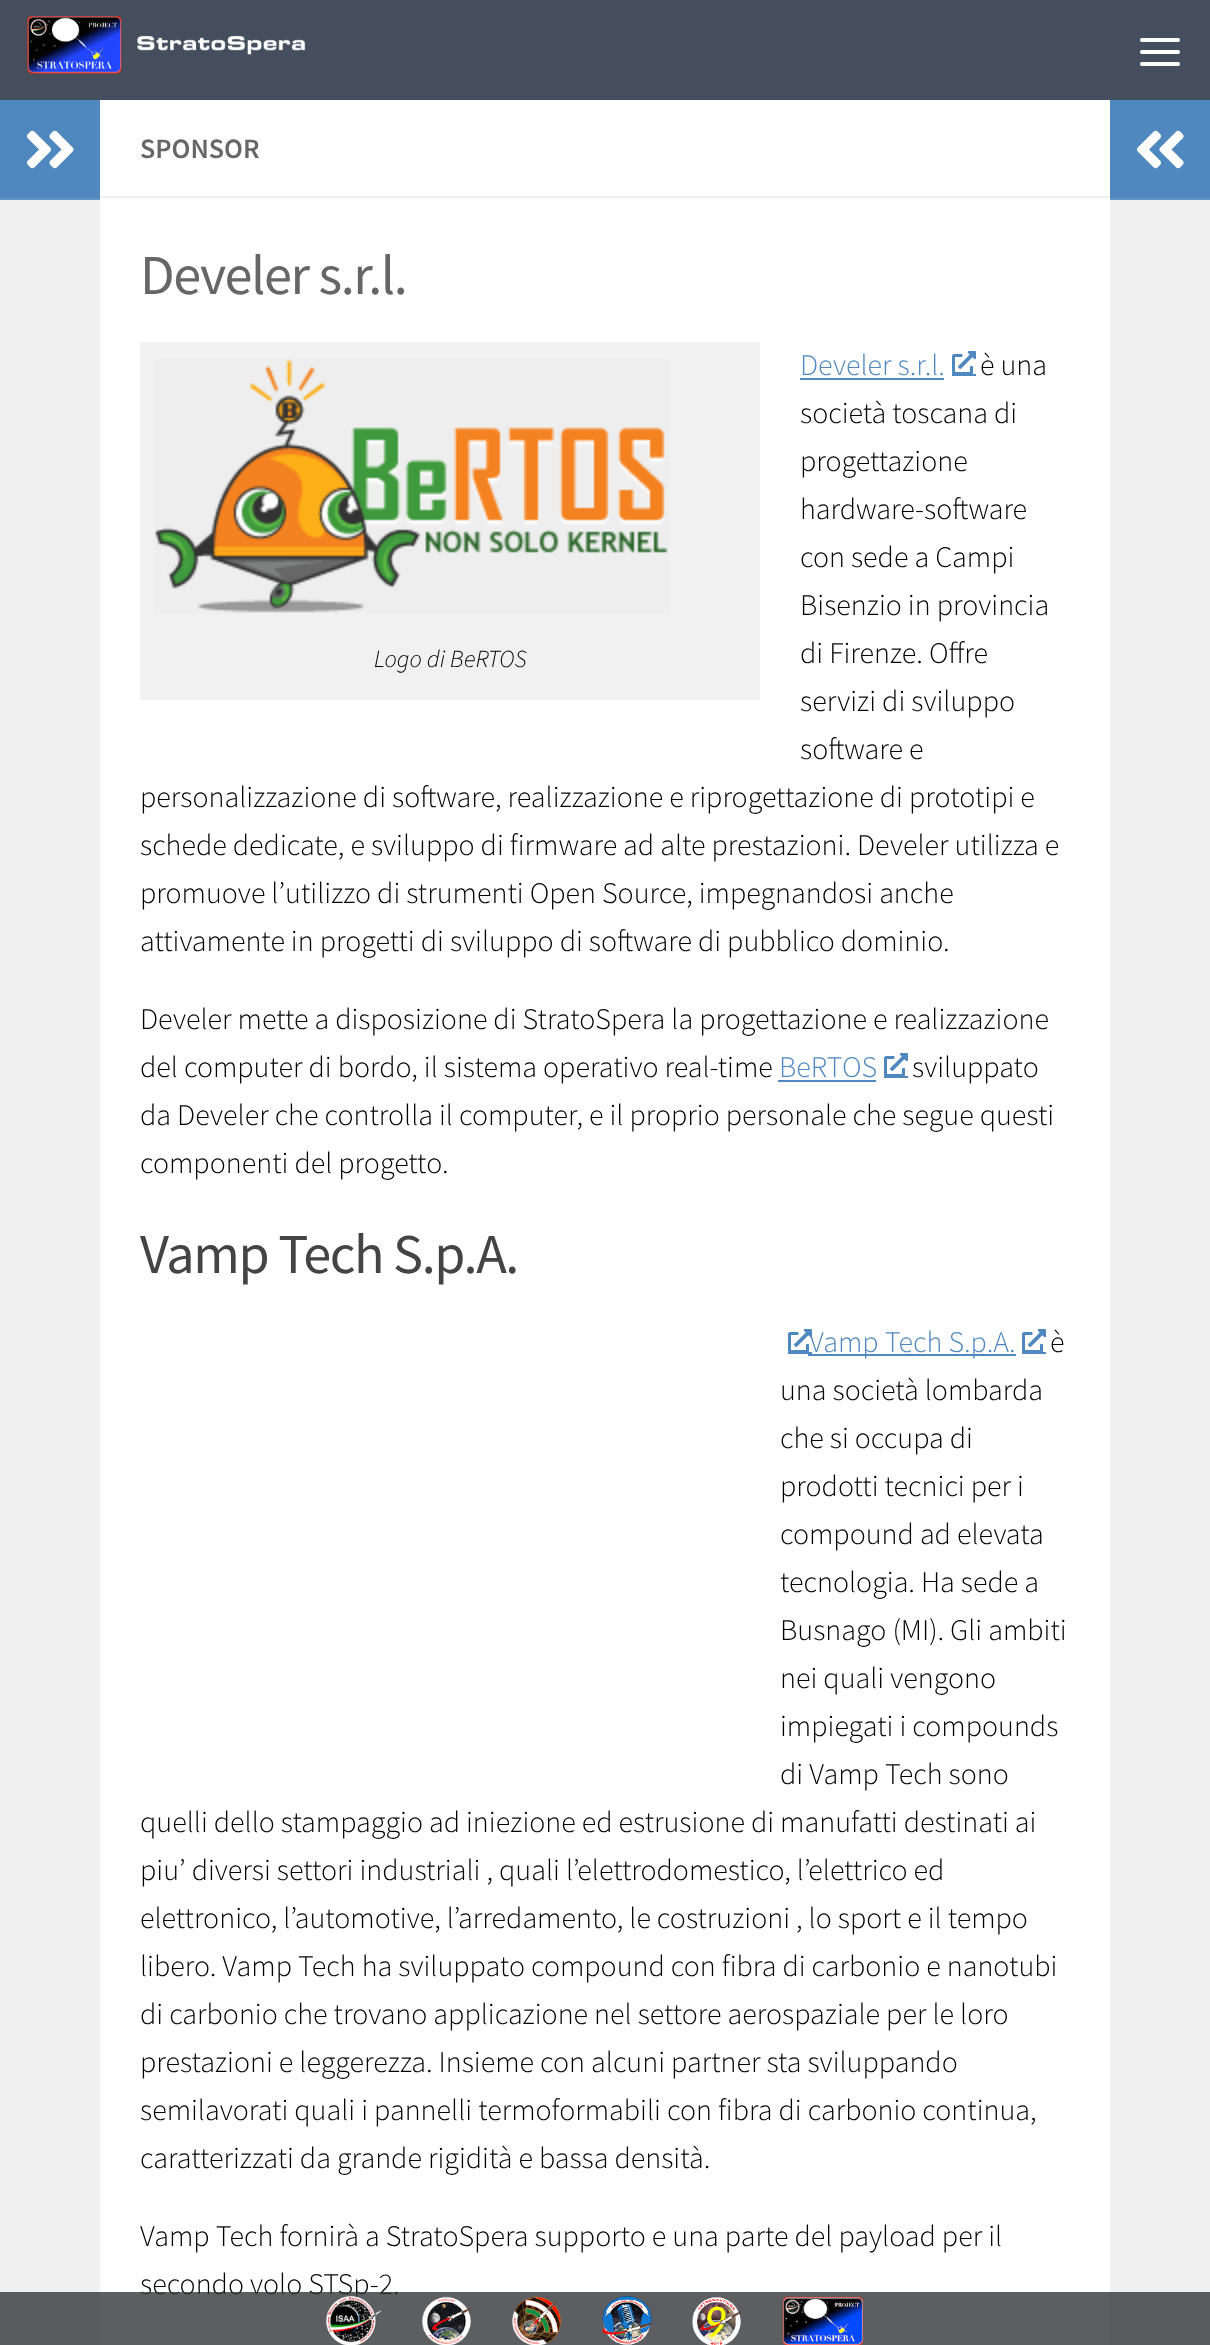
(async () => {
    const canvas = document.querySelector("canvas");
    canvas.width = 1210;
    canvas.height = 2345;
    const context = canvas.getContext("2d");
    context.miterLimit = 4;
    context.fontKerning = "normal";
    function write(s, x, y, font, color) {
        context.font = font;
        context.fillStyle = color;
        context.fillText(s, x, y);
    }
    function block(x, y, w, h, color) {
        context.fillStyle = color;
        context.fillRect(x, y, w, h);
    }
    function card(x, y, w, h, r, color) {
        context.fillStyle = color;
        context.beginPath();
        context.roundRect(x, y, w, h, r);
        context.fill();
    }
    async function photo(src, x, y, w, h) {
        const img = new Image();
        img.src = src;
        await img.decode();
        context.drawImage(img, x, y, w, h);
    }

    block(0, 0, 1210, 2345, "rgb(255, 255, 255)");
    block(0, 0, 1210, 100, "rgb(69, 78, 92)");
    await photo("media/1.png", 27, 16, 279, 59);
    card(1140, 38, 40, 4, 2, "rgb(255, 255, 255)");
    card(1140, 50, 40, 4, 2, "rgb(255, 255, 255)");
    card(1140, 62, 40, 4, 2, "rgb(255, 255, 255)");
    block(0, 200, 100, 2145, "rgb(240, 240, 240)");
    block(0, 100, 100, 98, "rgb(78, 136, 191)");
    block(0, 198, 100, 2, "rgb(96, 148, 197)");
    await photo("media/2.png", 26, 130, 48, 39);
    block(100, 196, 1010, 2, "rgb(238, 238, 238)");
    write("SPONSOR", 140, 158, "600 28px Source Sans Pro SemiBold", "rgb(102, 102, 102)");
    context.letterSpacing = "-1.4px";
    write("Develer s.r.l.", 140, 294, "56.25px Source Sans Pro", "rgb(102, 102, 102)");
    context.letterSpacing = "0px";
    write("Develer s.r.l.", 800, 375, "300 30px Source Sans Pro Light", "rgb(78, 136, 191)");
    block(800, 378, 144, 2, "rgb(78, 136, 191)");
    block(952, 374, 24, 2, "rgb(78, 136, 191)");
    await photo("media/3.png", 952, 351, 24, 23);
    write("è una", 980, 375, "300 30px Source Sans Pro Light", "rgb(0, 0, 0)");
    write("società toscana di", 800, 423, "300 30px Source Sans Pro Light", "rgb(0, 0, 0)");
    write("progettazione", 800, 471, "300 30px Source Sans Pro Light", "rgb(0, 0, 0)");
    write("hardware-software", 800, 519, "300 30px Source Sans Pro Light", "rgb(0, 0, 0)");
    write("con sede a Campi", 800, 567, "300 30px Source Sans Pro Light", "rgb(0, 0, 0)");
    write("Bisenzio in provincia", 800, 615, "300 30px Source Sans Pro Light", "rgb(0, 0, 0)");
    write("di Firenze. Offre", 800, 663, "300 30px Source Sans Pro Light", "rgb(0, 0, 0)");
    write("servizi di sviluppo", 800, 711, "300 30px Source Sans Pro Light", "rgb(0, 0, 0)");
    write("software e", 800, 759, "300 30px Source Sans Pro Light", "rgb(0, 0, 0)");
    write("personalizzazione di software, realizzazione e riprogettazione di prototipi e", 140, 807, "300 30px Source Sans Pro Light", "rgb(0, 0, 0)");
    write("schede dedicate, e sviluppo di firmware ad alte prestazioni. Develer utilizza e", 140, 855, "300 30px Source Sans Pro Light", "rgb(0, 0, 0)");
    write("promuove l’utilizzo di strumenti Open Source, impegnandosi anche", 140, 903, "300 30px Source Sans Pro Light", "rgb(0, 0, 0)");
    write("attivamente in progetti di sviluppo di software di pubblico dominio.", 140, 951, "300 30px Source Sans Pro Light", "rgb(0, 0, 0)");
    block(140, 342, 620, 358, "rgb(241, 241, 241)");
    await photo("media/4.png", 155, 359, 514, 254);
    write("Logo di BeRTOS", 374, 667, "italic 300 24.5px Source Sans Pro Light", "rgb(0, 0, 0)");
    write("Develer mette a disposizione di StratoSpera la progettazione e realizzazione", 140, 1029, "300 30px Source Sans Pro Light", "rgb(0, 0, 0)");
    write("del computer di bordo, il sistema operativo real-time", 140, 1077, "300 30px Source Sans Pro Light", "rgb(0, 0, 0)");
    write("BeRTOS", 779, 1077, "300 30px Source Sans Pro Light", "rgb(78, 136, 191)");
    block(778, 1080, 98, 2, "rgb(78, 136, 191)");
    block(884, 1076, 24, 2, "rgb(78, 136, 191)");
    await photo("media/3.png", 884, 1053, 24, 23);
    write("sviluppato", 912, 1077, "300 30px Source Sans Pro Light", "rgb(0, 0, 0)");
    write("da Develer che controlla il computer, e il proprio personale che segue questi", 140, 1125, "300 30px Source Sans Pro Light", "rgb(0, 0, 0)");
    write("componenti del progetto.", 140, 1173, "300 30px Source Sans Pro Light", "rgb(0, 0, 0)");
    context.letterSpacing = "-1.4px";
    write("Vamp Tech S.p.A.", 140, 1273, "56.25px Source Sans Pro", "rgb(68, 68, 68)");
    block(808, 1354, 208, 2, "rgb(78, 136, 191)");
    context.letterSpacing = "0px";
    write("Vamp Tech S.p.A.", 809, 1352, "300 30px Source Sans Pro Light", "rgb(78, 136, 191)");
    await photo("media/5.png", 788, 1329, 24, 23);
    block(1022, 1352, 24, 2, "rgb(78, 136, 191)");
    await photo("media/3.png", 1022, 1329, 24, 23);
    write("è", 1050, 1352, "300 30px Source Sans Pro Light", "rgb(0, 0, 0)");
    block(788, 1352, 24, 2, "rgb(78, 136, 191)");
    write("una società lombarda", 780, 1400, "300 30px Source Sans Pro Light", "rgb(0, 0, 0)");
    write("che si occupa di", 780, 1448, "300 30px Source Sans Pro Light", "rgb(0, 0, 0)");
    write("prodotti tecnici per i", 780, 1496, "300 30px Source Sans Pro Light", "rgb(0, 0, 0)");
    write("compound ad elevata", 780, 1544, "300 30px Source Sans Pro Light", "rgb(0, 0, 0)");
    write("tecnologia. Ha sede a", 780, 1592, "300 30px Source Sans Pro Light", "rgb(0, 0, 0)");
    write("Busnago (MI). Gli ambiti", 780, 1640, "300 30px Source Sans Pro Light", "rgb(0, 0, 0)");
    write("nei quali vengono", 780, 1688, "300 30px Source Sans Pro Light", "rgb(0, 0, 0)");
    write("impiegati i compounds", 780, 1736, "300 30px Source Sans Pro Light", "rgb(0, 0, 0)");
    write("di Vamp Tech sono", 780, 1784, "300 30px Source Sans Pro Light", "rgb(0, 0, 0)");
    write("quelli dello stampaggio ad iniezione ed estrusione di manufatti destinati ai", 140, 1832, "300 30px Source Sans Pro Light", "rgb(0, 0, 0)");
    write("piu’ diversi settori industriali , quali l’elettrodomestico, l’elettrico ed", 140, 1880, "300 30px Source Sans Pro Light", "rgb(0, 0, 0)");
    write("elettronico, l’automotive, l’arredamento, le costruzioni , lo sport e il tempo", 140, 1928, "300 30px Source Sans Pro Light", "rgb(0, 0, 0)");
    write("libero. Vamp Tech ha sviluppato compound con fibra di carbonio e nanotubi", 140, 1976, "300 30px Source Sans Pro Light", "rgb(0, 0, 0)");
    write("di carbonio che trovano applicazione nel settore aerospaziale per le loro", 140, 2024, "300 30px Source Sans Pro Light", "rgb(0, 0, 0)");
    write("prestazioni e leggerezza. Insieme con alcuni partner sta sviluppando", 140, 2072, "300 30px Source Sans Pro Light", "rgb(0, 0, 0)");
    write("semilavorati quali i pannelli termoformabili con fibra di carbonio continua,", 140, 2120, "300 30px Source Sans Pro Light", "rgb(0, 0, 0)");
    write("caratterizzati da grande rigidità e bassa densità.", 140, 2168, "300 30px Source Sans Pro Light", "rgb(0, 0, 0)");
    write("Vamp Tech fornirà a StratoSpera supporto e una parte del payload per il", 140, 2246, "300 30px Source Sans Pro Light", "rgb(0, 0, 0)");
    write("secondo volo STSp-2.", 140, 2294, "300 30px Source Sans Pro Light", "rgb(0, 0, 0)");
    block(1110, 100, 100, 98, "rgb(78, 136, 191)");
    block(1110, 198, 100, 2, "rgb(96, 148, 197)");
    await photo("media/6.png", 1136, 130, 48, 39);
    block(1110, 200, 100, 2145, "rgb(240, 240, 240)");
    block(0, 2292, 1210, 53, "rgba(51, 54, 59, 0.8)");
    await photo("media/7.png", 326, 2296, 56, 49);
    await photo("media/8.png", 422, 2296, 50, 49);
    await photo("media/9.png", 512, 2296, 49, 49);
    await photo("media/10.png", 602, 2296, 50, 49);
    await photo("media/11.png", 692, 2297, 50, 48);
    await photo("media/12.png", 782, 2296, 82, 49);
})();
